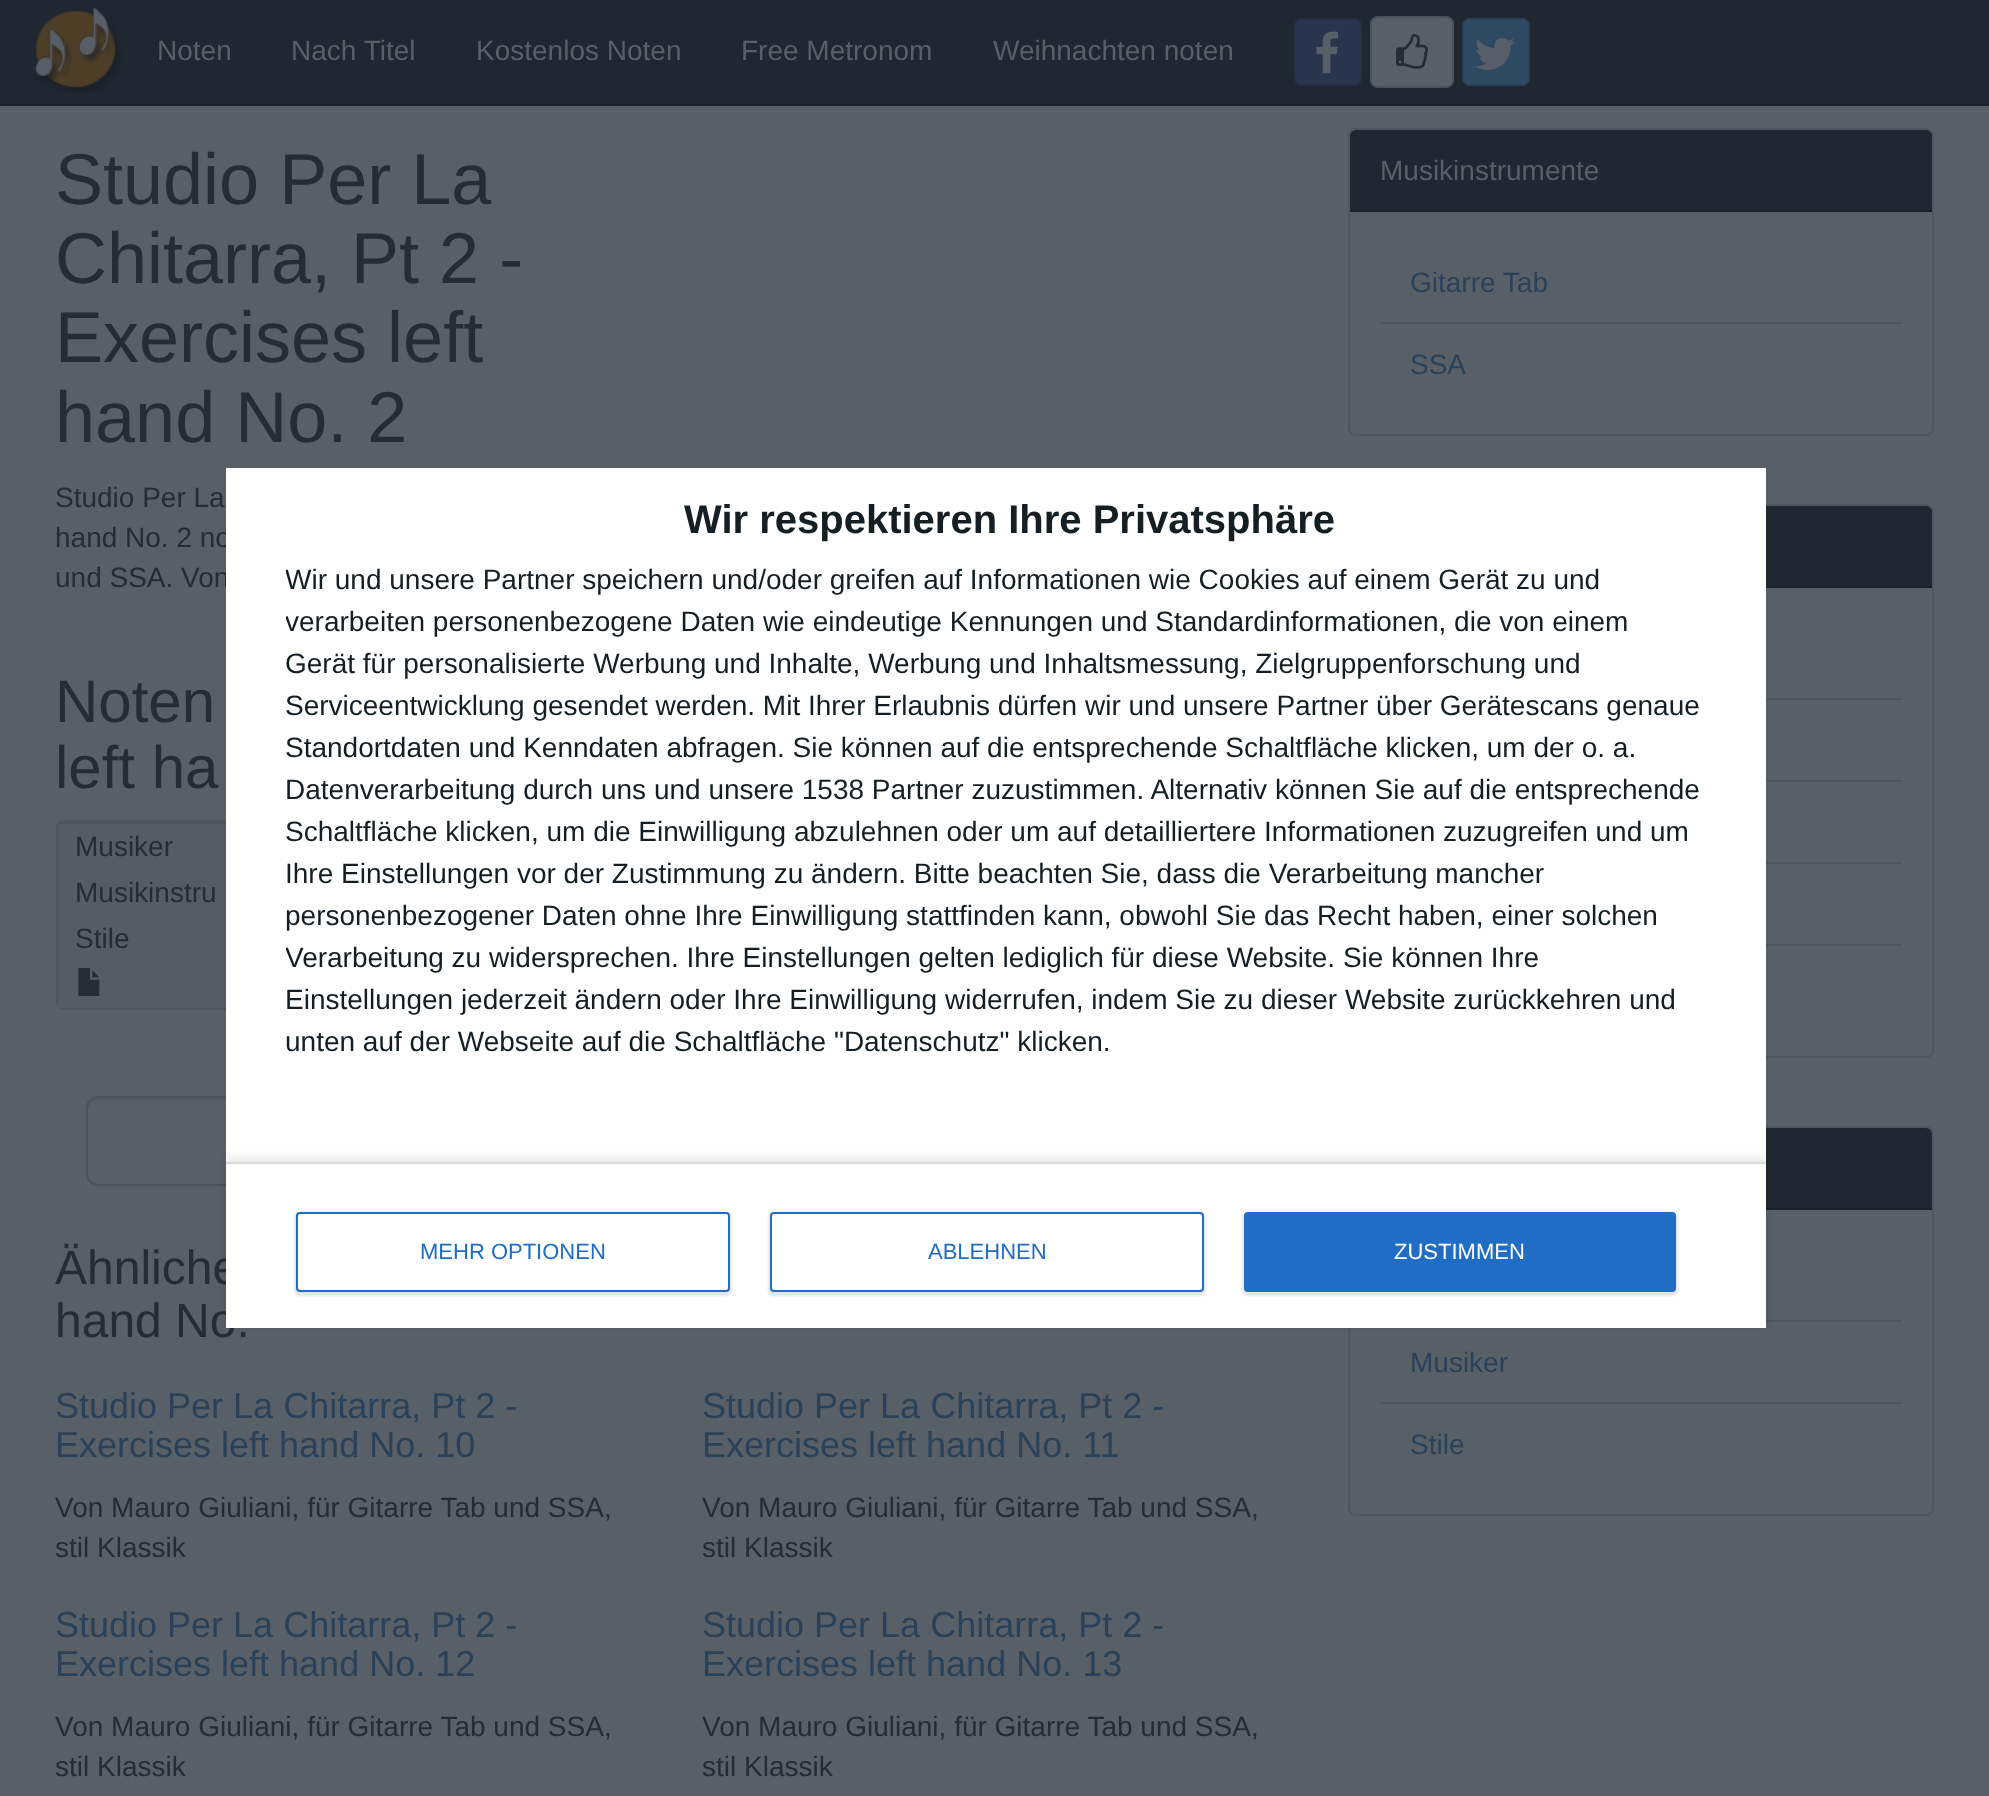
(async () => {
    const canvas = document.querySelector("canvas");
    canvas.width = 1989;
    canvas.height = 1796;
    const context = canvas.getContext("2d");
    context.miterLimit = 4;
    context.fontKerning = "normal";
    function write(s, x, y, font, color) {
        context.font = font;
        context.fillStyle = color;
        context.fillText(s, x, y);
    }
    function block(x, y, w, h, color) {
        context.fillStyle = color;
        context.fillRect(x, y, w, h);
    }
    function card(x, y, w, h, r, color) {
        context.fillStyle = color;
        context.beginPath();
        context.roundRect(x, y, w, h, r);
        context.fill();
    }
    async function photo(src, x, y, w, h) {
        const img = new Image();
        img.src = src;
        await img.decode();
        context.drawImage(img, x, y, w, h);
    }

    block(0, 0, 1989, 1796, "rgb(89, 95, 103)");
    block(0, 0, 1989, 104, "rgb(33, 39, 48)");
    block(0, 104, 1989, 2, "rgb(27, 33, 41)");
    await photo("media/1.png", 34, 7, 88, 86);
    write("Noten", 157, 60, "28px Liberation Sans", "rgb(89, 95, 103)");
    write("Nach Titel", 291, 60, "28px Liberation Sans", "rgb(89, 95, 103)");
    write("Kostenlos Noten", 476, 60, "28px Liberation Sans", "rgb(89, 95, 103)");
    write("Free Metronom", 741, 60, "28px Liberation Sans", "rgb(89, 95, 103)");
    write("Weihnachten noten", 993, 60, "28px Liberation Sans", "rgb(89, 95, 103)");
    card(1294, 18, 68, 68, 8, "rgb(40, 53, 77)");
    context.beginPath();
    context.roundRect(1295, 19, 66, 66, 7);
    context.strokeStyle = "rgba(25, 31, 39, 0.2)";
    context.lineWidth = 2;
    context.stroke();
    await photo("media/2.png", 1316, 31, 22, 43);
    context.fillStyle = "rgb(89, 95, 103)";
    context.beginPath();
    context.roundRect(1371, 17, 82, 70, 7);
    context.fill();
    context.strokeStyle = "rgb(76, 82, 90)";
    context.stroke();
    await photo("media/3.png", 1396, 34, 32, 35);
    card(1462, 18, 68, 68, 8, "rgb(46, 74, 99)");
    context.beginPath();
    context.roundRect(1463, 19, 66, 66, 7);
    context.strokeStyle = "rgba(25, 31, 39, 0.2)";
    context.stroke();
    await photo("media/4.png", 1475, 38, 40, 32);
    write("Studio Per La", 55, 204, "72px Liberation Sans", "rgb(38, 44, 52)");
    write("Chitarra, Pt 2 -", 55, 283, "72px Liberation Sans", "rgb(38, 44, 52)");
    write("Exercises left", 55, 362, "72px Liberation Sans", "rgb(38, 44, 52)");
    write("hand No. 2", 55, 442, "72px Liberation Sans", "rgb(38, 44, 52)");
    write("Studio Per La", 55, 507, "28px Liberation Sans", "rgb(38, 44, 52)");
    write("hand No. 2 no", 55, 547, "28px Liberation Sans", "rgb(38, 44, 52)");
    write("und SSA. Von", 55, 587, "28px Liberation Sans", "rgb(38, 44, 52)");
    write("Noten", 55, 722, "60px Liberation Sans", "rgb(38, 44, 52)");
    write("left ha", 55, 788, "60px Liberation Sans", "rgb(38, 44, 52)");
    context.beginPath();
    context.roundRect(57, 821, 1230, 188, 7);
    context.strokeStyle = "rgb(80, 86, 94)";
    context.stroke();
    block(58, 822, 168, 2, "rgb(80, 86, 94)");
    block(58, 824, 168, 184, "rgb(86, 92, 100)");
    write("Musiker", 75, 856, "28px Liberation Sans", "rgb(38, 44, 52)");
    write("Musikinstru", 75, 902, "28px Liberation Sans", "rgb(38, 44, 52)");
    write("Stile", 75, 948, "28px Liberation Sans", "rgb(38, 44, 52)");
    await photo("media/5.png", 78, 968, 22, 28);
    context.fillStyle = "rgb(84, 90, 98)";
    context.beginPath();
    context.moveTo(98, 1100);
    context.lineTo(1030, 1100);
    context.lineTo(1030, 1098);
    context.lineTo(98, 1098);
    context.bezierCurveTo(92, 1098, 88, 1102, 88, 1108);
    context.lineTo(88, 1110);
    context.bezierCurveTo(88, 1104, 92, 1100, 98, 1100);
    context.closePath();
    context.fill();
    context.beginPath();
    context.roundRect(87, 1097, 944, 88, [11, 0, 0, 11]);
    context.strokeStyle = "rgb(76, 82, 90)";
    context.stroke();
    write("Ähnliche", 55, 1284, "48px Liberation Sans", "rgb(38, 44, 52)");
    write("hand No.", 55, 1337, "48px Liberation Sans", "rgb(38, 44, 52)");
    write("Studio Per La Chitarra, Pt 2 -", 55, 1418, "36px Liberation Sans", "rgb(41, 66, 90)");
    write("Exercises left hand No. 10", 55, 1457, "36px Liberation Sans", "rgb(41, 66, 90)");
    write("Von Mauro Giuliani, für Gitarre Tab und SSA,", 55, 1517, "28px Liberation Sans", "rgb(38, 44, 52)");
    write("stil Klassik", 55, 1557, "28px Liberation Sans", "rgb(38, 44, 52)");
    write("Studio Per La Chitarra, Pt 2 -", 702, 1418, "36px Liberation Sans", "rgb(41, 66, 90)");
    write("Exercises left hand No. 11", 702, 1457, "36px Liberation Sans", "rgb(41, 66, 90)");
    write("Von Mauro Giuliani, für Gitarre Tab und SSA,", 702, 1517, "28px Liberation Sans", "rgb(38, 44, 52)");
    write("stil Klassik", 702, 1557, "28px Liberation Sans", "rgb(38, 44, 52)");
    write("Studio Per La Chitarra, Pt 2 -", 55, 1637, "36px Liberation Sans", "rgb(41, 66, 90)");
    write("Exercises left hand No. 12", 55, 1676, "36px Liberation Sans", "rgb(41, 66, 90)");
    write("Von Mauro Giuliani, für Gitarre Tab und SSA,", 55, 1736, "28px Liberation Sans", "rgb(38, 44, 52)");
    write("stil Klassik", 55, 1776, "28px Liberation Sans", "rgb(38, 44, 52)");
    write("Studio Per La Chitarra, Pt 2 -", 702, 1637, "36px Liberation Sans", "rgb(41, 66, 90)");
    write("Exercises left hand No. 13", 702, 1676, "36px Liberation Sans", "rgb(41, 66, 90)");
    write("Von Mauro Giuliani, für Gitarre Tab und SSA,", 702, 1736, "28px Liberation Sans", "rgb(38, 44, 52)");
    write("stil Klassik", 702, 1776, "28px Liberation Sans", "rgb(38, 44, 52)");
    context.beginPath();
    context.roundRect(1349, 129, 584, 306, 7);
    context.strokeStyle = "rgb(80, 86, 94)";
    context.stroke();
    context.fillStyle = "rgb(33, 39, 48)";
    context.beginPath();
    context.roundRect(1350, 130, 582, 82, [6, 6, 0, 0]);
    context.fill();
    block(1350, 210, 582, 2, "rgb(27, 33, 41)");
    write("Musikinstrumente", 1380, 180, "28px Liberation Sans", "rgb(89, 95, 103)");
    write("Gitarre Tab", 1410, 292, "28px Liberation Sans", "rgb(41, 66, 90)");
    block(1380, 322, 522, 2, "rgb(80, 86, 94)");
    write("SSA", 1410, 374, "28px Liberation Sans", "rgb(41, 66, 90)");
    context.beginPath();
    context.roundRect(1349, 505, 584, 552, 7);
    context.stroke();
    context.fillStyle = "rgb(33, 39, 48)";
    context.beginPath();
    context.roundRect(1350, 506, 582, 82, [6, 6, 0, 0]);
    context.fill();
    block(1766, 586, 166, 2, "rgb(27, 33, 41)");
    block(1766, 698, 136, 2, "rgb(80, 86, 94)");
    block(1766, 780, 136, 2, "rgb(80, 86, 94)");
    block(1766, 862, 136, 2, "rgb(80, 86, 94)");
    block(1766, 944, 136, 2, "rgb(80, 86, 94)");
    context.beginPath();
    context.roundRect(1349, 1127, 584, 388, 7);
    context.stroke();
    context.fillStyle = "rgb(33, 39, 48)";
    context.beginPath();
    context.roundRect(1350, 1128, 582, 82, [6, 6, 0, 0]);
    context.fill();
    block(1766, 1208, 166, 2, "rgb(27, 33, 41)");
    block(1766, 1320, 136, 2, "rgb(80, 86, 94)");
    write("Musiker", 1410, 1372, "28px Liberation Sans", "rgb(41, 66, 90)");
    block(1380, 1402, 522, 2, "rgb(80, 86, 94)");
    write("Stile", 1410, 1454, "28px Liberation Sans", "rgb(41, 66, 90)");
    block(226, 468, 1540, 860, "rgb(255, 255, 255)");
    write("Wir respektieren Ihre Privatsphäre", 684, 533, "bold 40px Liberation Sans", "rgb(20, 30, 35)");
    context.save();
    context.beginPath();
    context.rect(286, 558, 1420, 504);
    context.clip();
    write("Wir und unsere Partner speichern und/oder greifen auf Informationen wie Cookies auf einem Gerät zu und", 285, 589, "28px Liberation Sans", "rgb(20, 30, 35)");
    write("verarbeiten personenbezogene Daten wie eindeutige Kennungen und Standardinformationen, die von einem", 285, 631, "28px Liberation Sans", "rgb(20, 30, 35)");
    context.restore();
    write("Gerät für personalisierte Werbung und Inhalte, Werbung und Inhaltsmessung, Zielgruppenforschung und", 285, 673, "28px Liberation Sans", "rgb(20, 30, 35)");
    write("Serviceentwicklung gesendet werden. Mit Ihrer Erlaubnis dürfen wir und unsere Partner über Gerätescans genaue", 285, 715, "28px Liberation Sans", "rgb(20, 30, 35)");
    write("Standortdaten und Kenndaten abfragen. Sie können auf die entsprechende Schaltfläche klicken, um der o. a.", 285, 757, "28px Liberation Sans", "rgb(20, 30, 35)");
    write("Datenverarbeitung durch uns und unsere 1538 Partner zuzustimmen. Alternativ können Sie auf die entsprechende", 285, 799, "28px Liberation Sans", "rgb(20, 30, 35)");
    write("Schaltfläche klicken, um die Einwilligung abzulehnen oder um auf detailliertere Informationen zuzugreifen und um", 285, 841, "28px Liberation Sans", "rgb(20, 30, 35)");
    write("Ihre Einstellungen vor der Zustimmung zu ändern. Bitte beachten Sie, dass die Verarbeitung mancher", 285, 883, "28px Liberation Sans", "rgb(20, 30, 35)");
    write("personenbezogener Daten ohne Ihre Einwilligung stattfinden kann, obwohl Sie das Recht haben, einer solchen", 285, 925, "28px Liberation Sans", "rgb(20, 30, 35)");
    context.save();
    context.beginPath();
    context.rect(286, 558, 1420, 504);
    context.clip();
    write("Verarbeitung zu widersprechen. Ihre Einstellungen gelten lediglich für diese Website. Sie können Ihre", 285, 967, "28px Liberation Sans", "rgb(20, 30, 35)");
    context.restore();
    write("Einstellungen jederzeit ändern oder Ihre Einwilligung widerrufen, indem Sie zu dieser Website zurückkehren und", 285, 1009, "28px Liberation Sans", "rgb(20, 30, 35)");
    write("unten auf der Webseite auf die Schaltfläche \"Datenschutz\" klicken.", 285, 1051, "28px Liberation Sans", "rgb(20, 30, 35)");
    context.save();
    context.beginPath();
    context.moveTo(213, 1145);
    context.lineTo(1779, 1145);
    context.lineTo(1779, 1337);
    context.lineTo(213, 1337);
    context.closePath();
    context.moveTo(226, 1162);
    context.lineTo(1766, 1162);
    context.lineTo(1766, 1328);
    context.lineTo(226, 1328);
    context.closePath();
    context.clip("evenodd");
    context.fillStyle = "rgba(0, 0, 0, 0.1)";
    context.filter = "blur(4px)";
    context.beginPath();
    context.rect(226, 1158, 1540, 166);
    context.fill();
    context.filter = "none";
    context.restore();
    block(226, 1162, 1540, 2, "rgb(216, 216, 216)");
    context.fillStyle = "rgba(0, 0, 0, 0.1)";
    context.filter = "blur(1px)";
    context.beginPath();
    context.roundRect(294, 1212, 438, 84, 6);
    context.fill();
    context.filter = "none";
    context.fillStyle = "rgb(255, 255, 255)";
    context.beginPath();
    context.roundRect(297, 1213, 432, 78, 3);
    context.fill();
    context.strokeStyle = "rgb(32, 109, 197)";
    context.stroke();
    write("MEHR OPTIONEN", 420, 1259, "22px Liberation Sans", "rgb(32, 109, 197)");
    context.fillStyle = "rgba(0, 0, 0, 0.1)";
    context.filter = "blur(1px)";
    context.beginPath();
    context.roundRect(768, 1212, 438, 84, 6);
    context.fill();
    context.filter = "none";
    context.fillStyle = "rgb(255, 255, 255)";
    context.beginPath();
    context.roundRect(771, 1213, 432, 78, 3);
    context.fill();
    context.stroke();
    write("ABLEHNEN", 928, 1259, "22px Liberation Sans", "rgb(32, 109, 197)");
    context.fillStyle = "rgba(0, 0, 0, 0.1)";
    context.filter = "blur(1px)";
    context.beginPath();
    context.roundRect(1242, 1212, 436, 84, 6);
    context.fill();
    context.filter = "none";
    card(1244, 1212, 432, 80, 4, "rgb(32, 109, 197)");
    write("ZUSTIMMEN", 1394, 1259, "22px Liberation Sans", "rgb(255, 255, 255)");
})();
